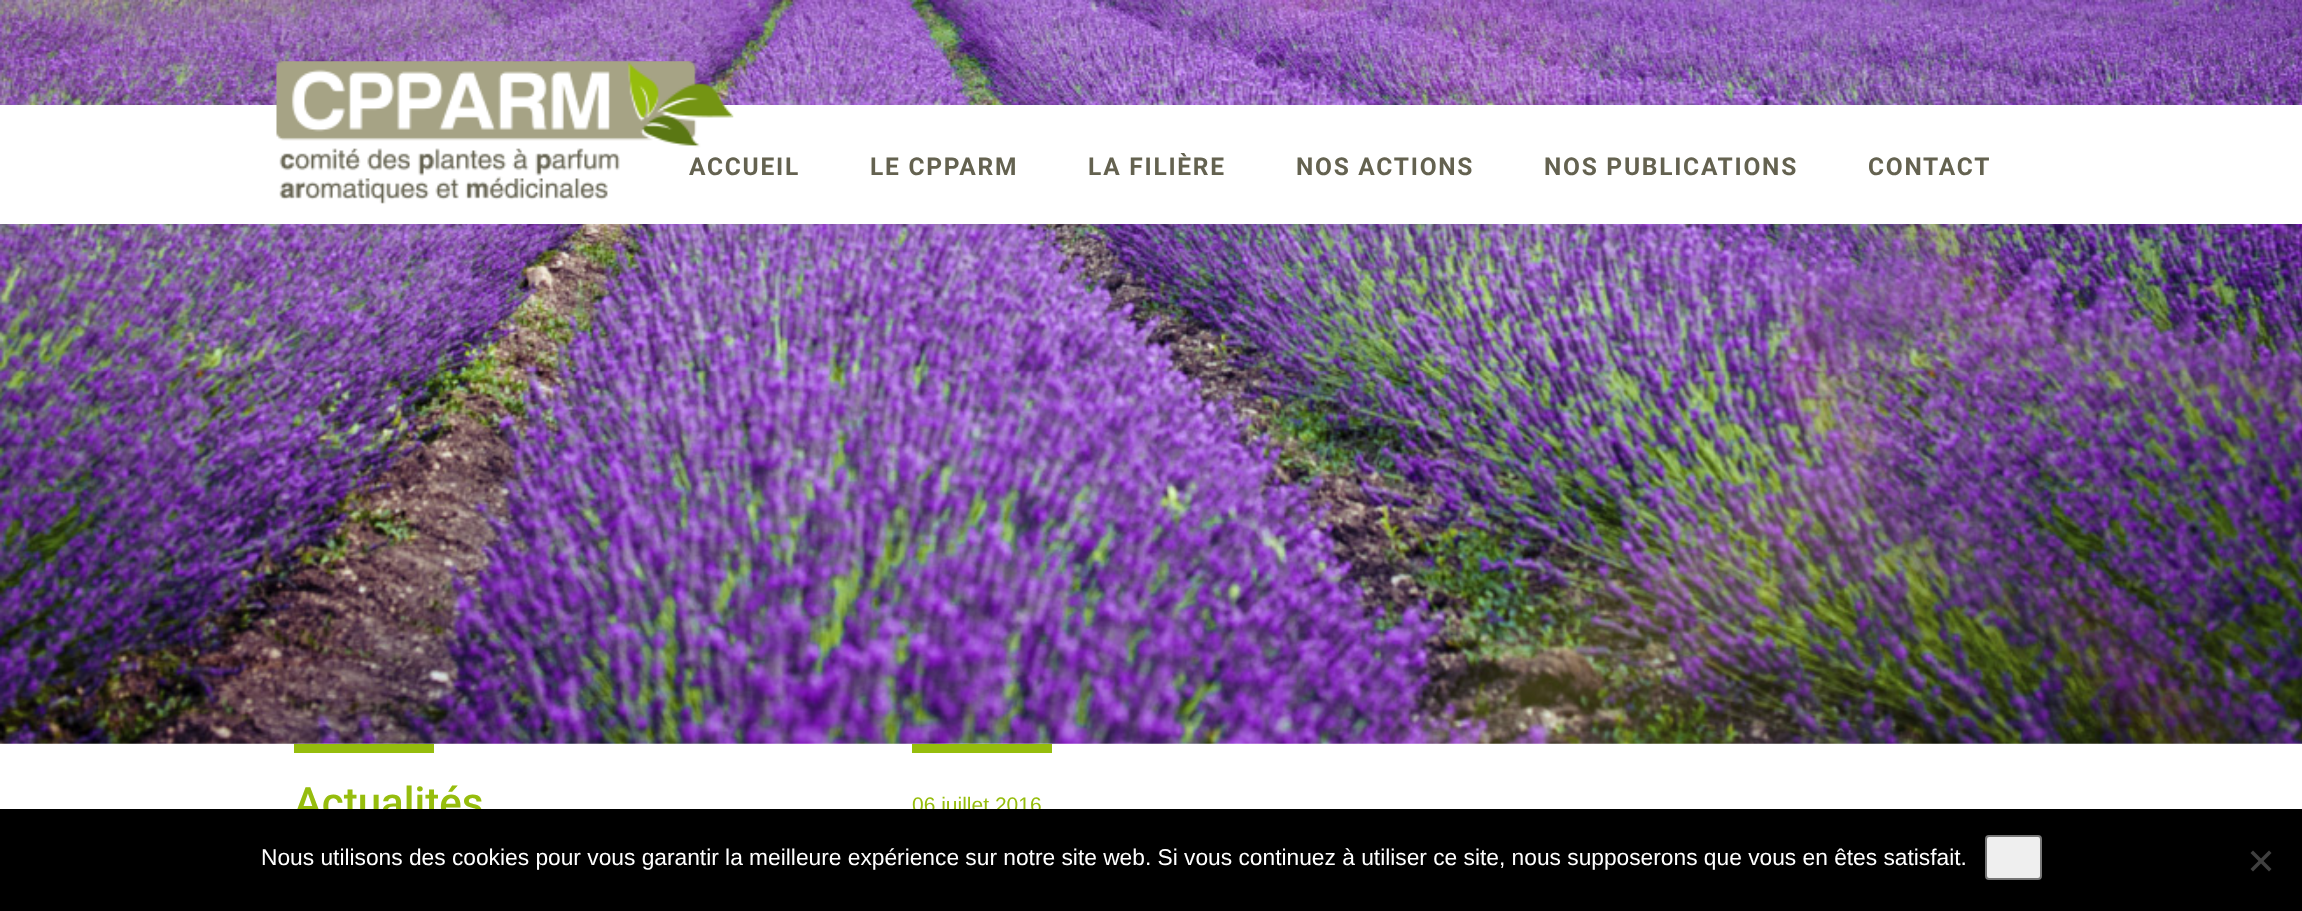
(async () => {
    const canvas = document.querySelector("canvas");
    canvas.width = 2302;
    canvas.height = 911;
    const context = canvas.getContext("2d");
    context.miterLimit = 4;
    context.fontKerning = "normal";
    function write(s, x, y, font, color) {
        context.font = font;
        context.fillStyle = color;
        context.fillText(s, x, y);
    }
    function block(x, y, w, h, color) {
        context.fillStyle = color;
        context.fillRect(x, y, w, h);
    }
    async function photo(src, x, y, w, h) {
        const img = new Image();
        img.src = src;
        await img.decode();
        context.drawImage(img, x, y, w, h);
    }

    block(0, 0, 2302, 911, "rgb(255, 255, 255)");
    await photo("media/1.png", 0, 0, 2302, 744);
    block(0, 105, 2302, 119, "rgb(255, 255, 255)");
    context.letterSpacing = "1.75px";
    write("ACCUEIL", 689, 175, "bold 24.5px Roboto", "rgb(100, 98, 80)");
    await photo("media/2.png", 276, 61, 458, 143);
    write("LE CPPARM", 870, 175, "bold 24.5px Roboto", "rgb(100, 98, 80)");
    write("LA FILIÈRE", 1088, 175, "bold 24.5px Roboto", "rgb(100, 98, 80)");
    write("NOS ACTIONS", 1296, 175, "bold 24.5px Roboto", "rgb(100, 98, 80)");
    write("NOS PUBLICATIONS", 1544, 175, "bold 24.5px Roboto", "rgb(100, 98, 80)");
    write("CONTACT", 1868, 175, "bold 24.5px Roboto", "rgb(100, 98, 80)");
    block(294, 744, 140, 9, "rgb(150, 189, 13)");
    context.letterSpacing = "0px";
    write("Actualités", 294, 817, "500 42px Roboto", "rgb(150, 189, 13)");
    block(912, 744, 140, 9, "rgb(150, 189, 13)");
    write("06 juillet 2016", 912, 812, "21px Liberation Sans", "rgb(150, 189, 13)");
    block(0, 809, 2302, 102, "rgb(0, 0, 0)");
    write("Nous utilisons des cookies pour vous garantir la meilleure expérience sur notre site web. Si vous continuez à utiliser ce site, nous supposerons que vous en êtes satisfait.", 261, 865, "22.75px Liberation Sans", "rgb(255, 255, 255)");
    context.fillStyle = "rgb(239, 239, 239)";
    context.beginPath();
    context.roundRect(1986, 836, 55, 43, 3);
    context.fill();
    context.strokeStyle = "rgb(118, 118, 118)";
    context.lineWidth = 2;
    context.stroke();
    context.fillStyle = "rgb(64, 64, 64)";
    context.beginPath();
    context.moveTo(2269, 850.5);
    context.lineTo(2271.5, 853);
    context.lineTo(2253, 871.5);
    context.lineTo(2250.5, 869);
    context.closePath();
    context.fill();
    context.beginPath();
    context.moveTo(2250.5, 853);
    context.lineTo(2253, 850.5);
    context.lineTo(2271.5, 869);
    context.lineTo(2269, 871.5);
    context.closePath();
    context.fill();
})();
